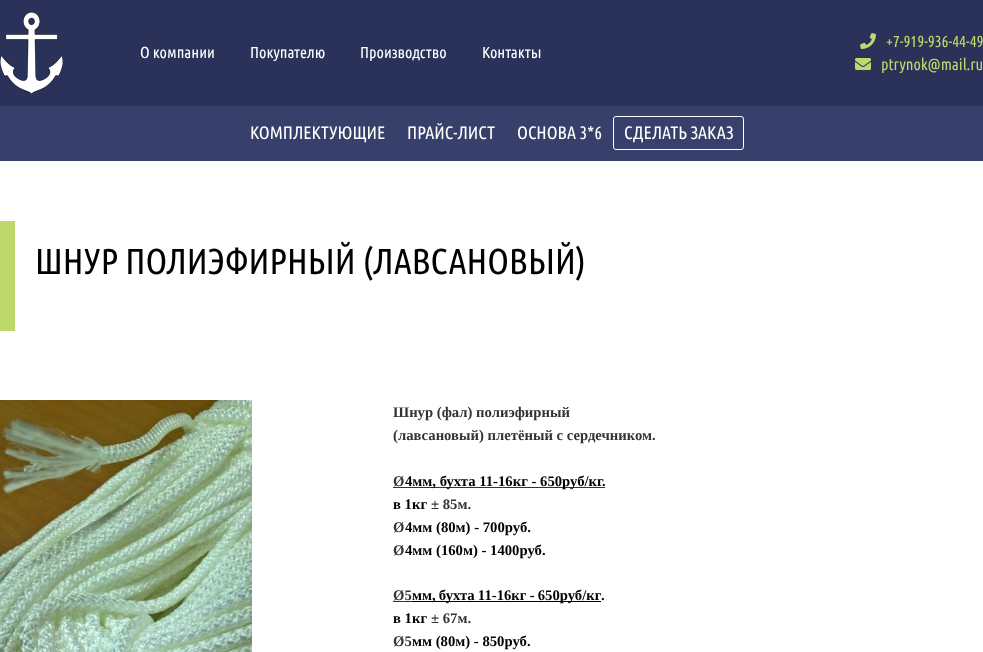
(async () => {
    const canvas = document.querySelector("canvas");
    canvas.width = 983;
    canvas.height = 652;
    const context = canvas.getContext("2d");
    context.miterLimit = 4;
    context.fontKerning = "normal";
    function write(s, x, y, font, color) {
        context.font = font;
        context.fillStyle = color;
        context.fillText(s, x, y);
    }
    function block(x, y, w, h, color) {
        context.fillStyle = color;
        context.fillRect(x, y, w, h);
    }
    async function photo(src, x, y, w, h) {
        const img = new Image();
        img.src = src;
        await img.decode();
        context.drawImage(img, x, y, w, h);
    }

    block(0, 0, 983, 652, "rgb(255, 255, 255)");
    block(0, 0, 983, 106, "rgb(42, 50, 90)");
    await photo("media/1.png", 0, 12, 63, 82);
    write("О компании", 140, 58, "16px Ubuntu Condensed", "rgb(255, 255, 255)");
    write("Покупателю", 250, 58, "16px Ubuntu Condensed", "rgb(255, 255, 255)");
    write("Производство", 360, 58, "16px Ubuntu Condensed", "rgb(255, 255, 255)");
    write("Контакты", 482, 58, "16px Ubuntu Condensed", "rgb(255, 255, 255)");
    await photo("media/2.png", 860, 33, 16, 16);
    write("+7-919-936-44-49", 886, 47, "16px Ubuntu Condensed", "rgb(190, 216, 108)");
    await photo("media/3.png", 855, 58, 16, 12);
    write("ptrynok@mail.ru", 881, 70, "16px Ubuntu Condensed", "rgb(190, 216, 108)");
    block(0, 106, 983, 55, "rgb(55, 64, 106)");
    write("КОМПЛЕКТУЮЩИЕ", 250, 139, "18px Ubuntu Condensed", "rgb(255, 255, 255)");
    write("ПРАЙС-ЛИСТ", 407, 139, "18px Ubuntu Condensed", "rgb(255, 255, 255)");
    write("ОСНОВА 3*6", 517, 139, "18px Ubuntu Condensed", "rgb(255, 255, 255)");
    context.beginPath();
    context.roundRect(613.5, 116.5, 130, 33, 2.5);
    context.strokeStyle = "rgb(255, 255, 255)";
    context.stroke();
    write("СДЕЛАТЬ ЗАКАЗ", 624, 139, "18px Ubuntu Condensed", "rgb(255, 255, 255)");
    block(0, 221, 15, 110, "rgb(190, 216, 108)");
    write("ШНУР ПОЛИЭФИРНЫЙ (ЛАВСАНОВЫЙ)", 35, 274, "36px Ubuntu Condensed", "rgb(0, 0, 0)");
    await photo("media/4.png", 0, 400, 252, 252);
    write("Шнур (фал) полиэфирный", 393, 417, "bold 14.7px Liberation Serif", "rgb(51, 51, 51)");
    write("(лавсановый) плетёный с сердечником.", 393, 440, "bold 14.7px Liberation Serif", "rgb(51, 51, 51)");
    write("Ø", 393, 486, "bold 14.7px Liberation Serif", "rgb(51, 51, 51)");
    block(393, 487, 212, 1, "rgb(51, 51, 51)");
    write("4мм, бухта 11-16кг - 650руб/кг.", 405, 486, "bold 14.7px Liberation Serif", "rgb(0, 0, 0)");
    write("в 1кг", 393, 509, "bold 14.7px Liberation Serif", "rgb(0, 0, 0)");
    write("± 85м.", 431, 509, "bold 14.7px Liberation Serif", "rgb(51, 51, 51)");
    write("Ø", 393, 532, "bold 14.7px Liberation Serif", "rgb(51, 51, 51)");
    write("4мм (80м) - 700руб.", 405, 532, "bold 14.7px Liberation Serif", "rgb(0, 0, 0)");
    write("Ø", 393, 555, "bold 14.7px Liberation Serif", "rgb(51, 51, 51)");
    write("4мм (160м) - 1400руб.", 405, 555, "bold 14.7px Liberation Serif", "rgb(0, 0, 0)");
    write("Ø5", 393, 600, "bold 14.7px Liberation Serif", "rgb(51, 51, 51)");
    block(412, 601, 189, 1, "rgb(0, 0, 0)");
    context.wordSpacing = "-0.5px";
    write("мм, бухта 11-16кг - 650руб/кг", 412, 600, "bold 14.7px Liberation Serif", "rgb(0, 0, 0)");
    block(393, 601, 19, 1, "rgb(51, 51, 51)");
    context.wordSpacing = "0px";
    write(".", 601, 600, "bold 14.7px Liberation Serif", "rgb(0, 0, 0)");
    write("в 1кг", 393, 623, "bold 14.7px Liberation Serif", "rgb(0, 0, 0)");
    write("± 67м.", 431, 623, "bold 14.7px Liberation Serif", "rgb(51, 51, 51)");
    write("Ø5", 393, 646, "bold 14.7px Liberation Serif", "rgb(51, 51, 51)");
    write("мм (80м) - 850руб.", 412, 646, "bold 14.7px Liberation Serif", "rgb(0, 0, 0)");
})();
